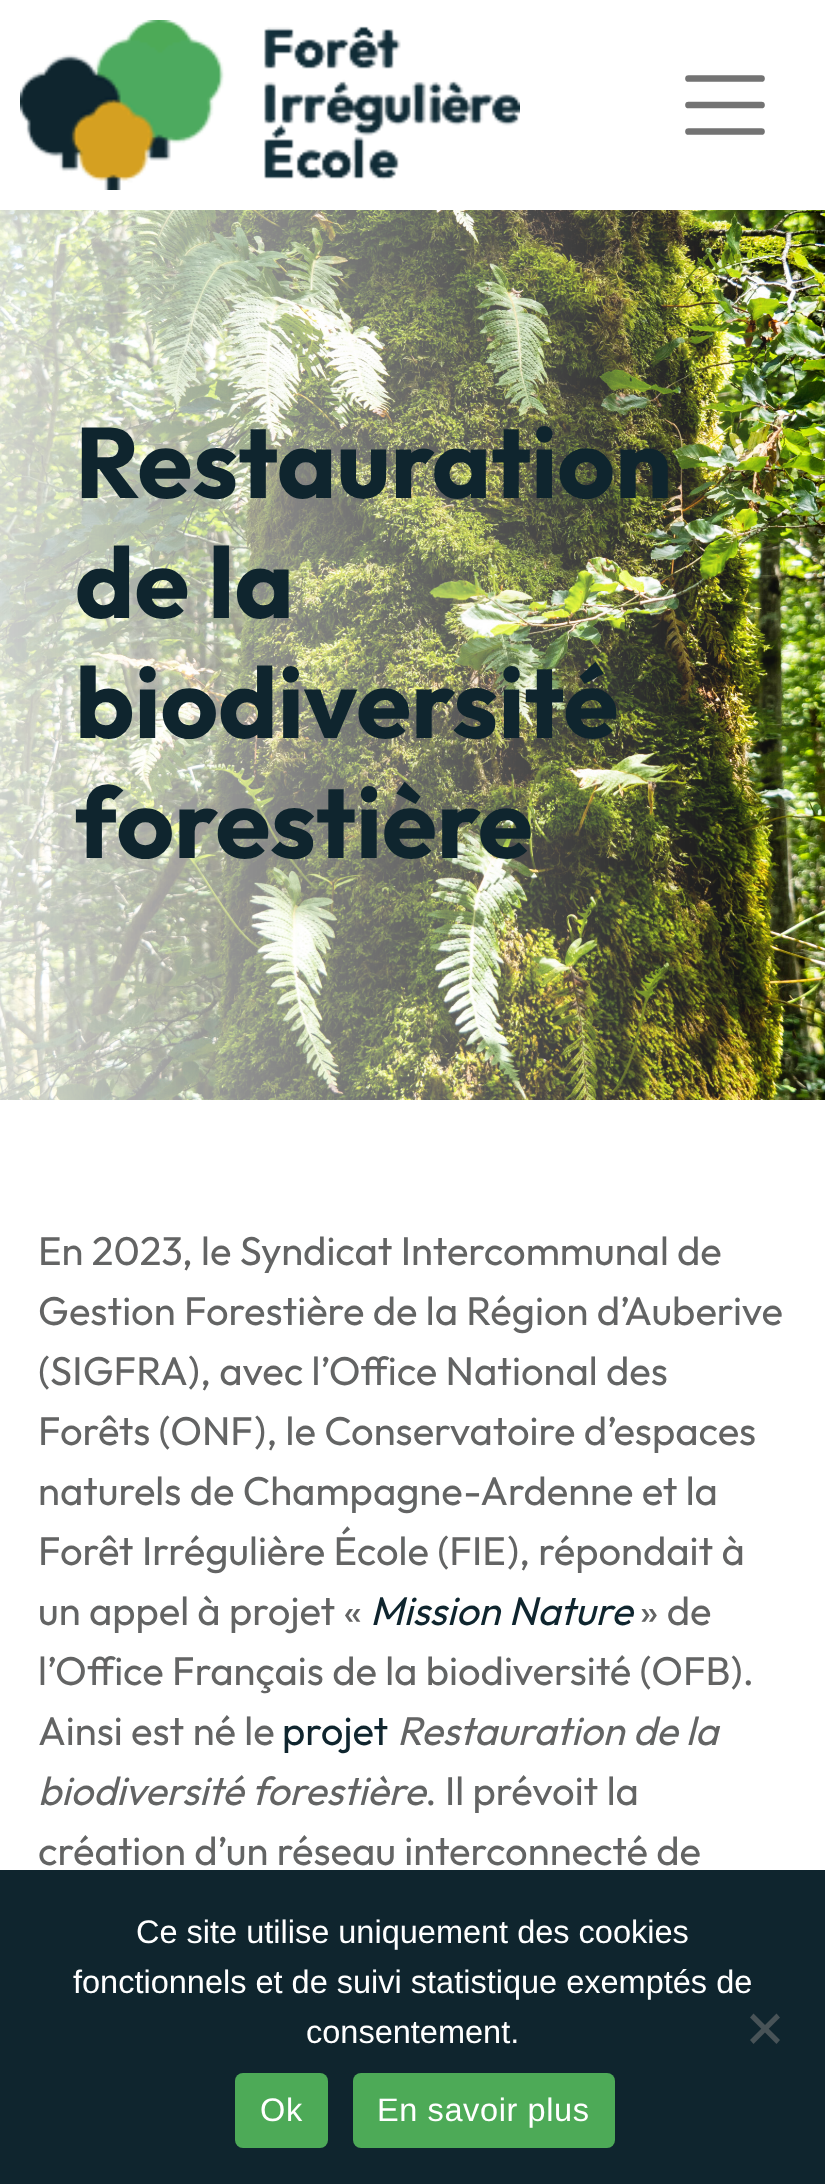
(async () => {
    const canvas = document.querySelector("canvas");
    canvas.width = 825;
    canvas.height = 2184;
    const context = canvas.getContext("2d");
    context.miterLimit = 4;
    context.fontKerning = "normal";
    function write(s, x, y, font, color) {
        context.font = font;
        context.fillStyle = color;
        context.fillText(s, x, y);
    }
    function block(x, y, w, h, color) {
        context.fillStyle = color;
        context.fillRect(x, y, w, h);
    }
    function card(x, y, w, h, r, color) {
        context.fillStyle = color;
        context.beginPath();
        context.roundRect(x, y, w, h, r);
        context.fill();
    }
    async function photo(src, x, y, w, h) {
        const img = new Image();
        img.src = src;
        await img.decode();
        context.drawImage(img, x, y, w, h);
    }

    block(0, 0, 825, 2184, "rgb(255, 255, 255)");
    await photo("media/1.png", 20, 20, 500, 170);
    context.beginPath();
    context.moveTo(688.5, 78.5);
    context.lineTo(761.5, 78.5);
    context.moveTo(688.5, 105);
    context.lineTo(761.5, 105);
    context.moveTo(688.5, 131.5);
    context.lineTo(761.5, 131.5);
    context.strokeStyle = "rgb(115, 115, 115)";
    context.lineWidth = 6.7;
    context.lineCap = "round";
    context.stroke();
    await photo("media/2.png", 0, 210, 825, 890);
    write("Restauration", 75, 498, "bold 100px Outfit", "rgb(15, 37, 46)");
    write("de la", 75, 618, "bold 100px Outfit", "rgb(15, 37, 46)");
    write("biodiversité", 75, 738, "bold 100px Outfit", "rgb(15, 37, 46)");
    write("forestière", 75, 858, "bold 100px Outfit", "rgb(15, 37, 46)");
    write("En 2023, le Syndicat Intercommunal de", 38, 1265, "40px Outfit", "rgb(99, 100, 100)");
    write("Gestion Forestière de la Région d’Auberive", 38, 1325, "40px Outfit", "rgb(99, 100, 100)");
    write("(SIGFRA), avec l’Office National des", 38, 1385, "40px Outfit", "rgb(99, 100, 100)");
    write("Forêts (ONF), le Conservatoire d’espaces", 38, 1445, "40px Outfit", "rgb(99, 100, 100)");
    write("naturels de Champagne-Ardenne et la", 38, 1505, "40px Outfit", "rgb(99, 100, 100)");
    write("Forêt Irrégulière École (FIE), répondait à", 38, 1565, "40px Outfit", "rgb(99, 100, 100)");
    write("un appel à projet «", 38, 1625, "40px Outfit", "rgb(99, 100, 100)");
    write("Mission Nature", 370, 1625, "italic 40px Outfit", "rgb(15, 37, 46)");
    write("» de", 640, 1625, "40px Outfit", "rgb(99, 100, 100)");
    write("l’Office Français de la biodiversité (OFB).", 38, 1685, "40px Outfit", "rgb(99, 100, 100)");
    write("Ainsi est né le", 38, 1745, "40px Outfit", "rgb(99, 100, 100)");
    write("projet", 282, 1745, "40px Outfit", "rgb(15, 37, 46)");
    write("Restauration de la", 397, 1745, "italic 40px Outfit", "rgb(99, 100, 100)");
    write("biodiversité forestière", 38, 1805, "italic 40px Outfit", "rgb(99, 100, 100)");
    write(". Il prévoit la", 425, 1805, "40px Outfit", "rgb(99, 100, 100)");
    write("création d’un réseau interconnecté de", 38, 1865, "40px Outfit", "rgb(99, 100, 100)");
    block(0, 1870, 825, 314, "rgb(15, 37, 46)");
    write("Ce site utilise uniquement des cookies", 136, 1943, "32.5px Liberation Sans", "rgb(255, 255, 255)");
    write("fonctionnels et de suivi statistique exemptés de", 73, 1993, "32.5px Liberation Sans", "rgb(255, 255, 255)");
    write("consentement.", 306, 2043, "32.5px Liberation Sans", "rgb(255, 255, 255)");
    context.fillStyle = "rgb(72, 83, 87)";
    context.beginPath();
    context.moveTo(776.5, 2013.5);
    context.lineTo(780, 2017.5);
    context.lineTo(753.5, 2044);
    context.lineTo(750, 2040);
    context.closePath();
    context.fill();
    context.beginPath();
    context.moveTo(750, 2017.5);
    context.lineTo(753.5, 2013.5);
    context.lineTo(780, 2040);
    context.lineTo(776.5, 2044);
    context.closePath();
    context.fill();
    card(235, 2073, 93, 75, 8, "rgb(77, 170, 87)");
    context.letterSpacing = "0.6px";
    write("Ok", 260, 2121, "32.5px Liberation Sans", "rgb(255, 255, 255)");
    card(353, 2073, 262, 75, 8, "rgb(77, 170, 87)");
    write("En savoir plus", 377, 2121, "32.5px Liberation Sans", "rgb(255, 255, 255)");
})();
